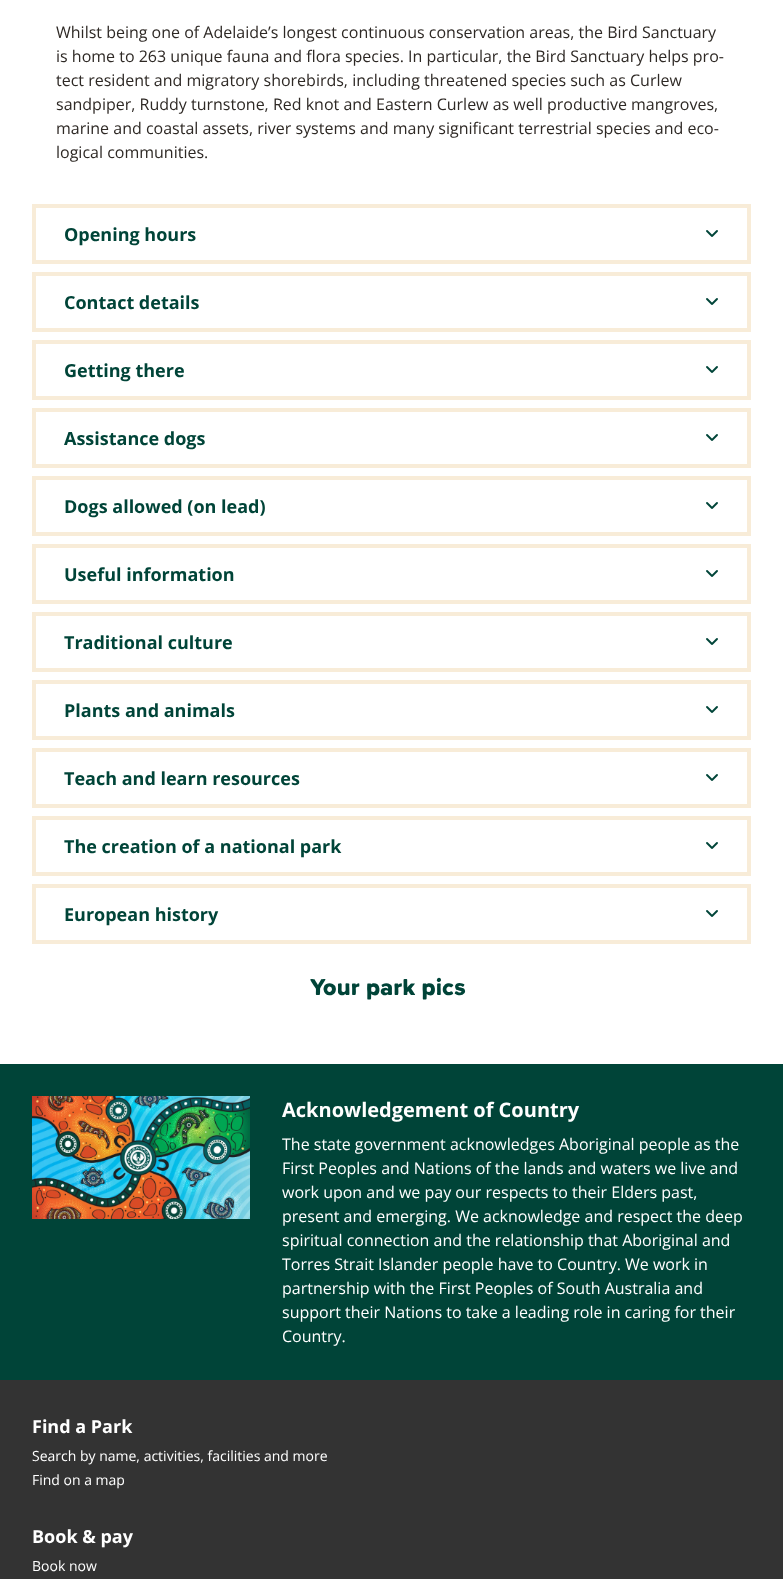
(async () => {
    const canvas = document.querySelector("canvas");
    canvas.width = 783;
    canvas.height = 1579;
    const context = canvas.getContext("2d");
    context.miterLimit = 4;
    context.fontKerning = "normal";
    function write(s, x, y, font, color) {
        context.font = font;
        context.fillStyle = color;
        context.fillText(s, x, y);
    }
    function block(x, y, w, h, color) {
        context.fillStyle = color;
        context.fillRect(x, y, w, h);
    }
    async function photo(src, x, y, w, h) {
        const img = new Image();
        img.src = src;
        await img.decode();
        context.drawImage(img, x, y, w, h);
    }

    block(0, 0, 783, 1579, "rgb(255, 255, 255)");
    write("Whilst being one of Adelaide’s longest continuous conservation areas, the Bird Sanctuary", 56, 38, "16px Open Sans", "rgb(46, 41, 37)");
    write("is home to 263 unique fauna and flora species. In particular, the Bird Sanctuary helps pro-", 56, 62, "16px Open Sans", "rgb(46, 41, 37)");
    write("tect resident and migratory shorebirds, including threatened species such as Curlew", 56, 86, "16px Open Sans", "rgb(46, 41, 37)");
    write("sandpiper, Ruddy turnstone, Red knot and Eastern Curlew as well productive mangroves,", 56, 110, "16px Open Sans", "rgb(46, 41, 37)");
    write("marine and coastal assets, river systems and many significant terrestrial species and eco-", 56, 134, "16px Open Sans", "rgb(46, 41, 37)");
    write("logical communities.", 56, 158, "16px Open Sans", "rgb(46, 41, 37)");
    context.strokeStyle = "rgb(248, 236, 216)";
    context.lineWidth = 4;
    context.strokeRect(34, 206, 715, 56);
    write("Opening hours", 64, 241, "bold 18px Open Sans", "rgb(0, 68, 56)");
    await photo("media/1.png", 706, 230, 12, 7);
    context.strokeRect(34, 274, 715, 56);
    write("Contact details", 64, 309, "bold 18px Open Sans", "rgb(0, 68, 56)");
    await photo("media/1.png", 706, 298, 12, 7);
    context.strokeRect(34, 342, 715, 56);
    write("Getting there", 64, 377, "bold 18px Open Sans", "rgb(0, 68, 56)");
    await photo("media/1.png", 706, 366, 12, 7);
    context.strokeRect(34, 410, 715, 56);
    write("Assistance dogs", 64, 445, "bold 18px Open Sans", "rgb(0, 68, 56)");
    await photo("media/1.png", 706, 434, 12, 7);
    context.strokeRect(34, 478, 715, 56);
    write("Dogs allowed (on lead)", 64, 513, "bold 18px Open Sans", "rgb(0, 68, 56)");
    await photo("media/1.png", 706, 502, 12, 7);
    context.strokeRect(34, 546, 715, 56);
    write("Useful information", 64, 581, "bold 18px Open Sans", "rgb(0, 68, 56)");
    await photo("media/1.png", 706, 570, 12, 7);
    context.strokeRect(34, 614, 715, 56);
    write("Traditional culture", 64, 649, "bold 18px Open Sans", "rgb(0, 68, 56)");
    await photo("media/1.png", 706, 638, 12, 7);
    context.strokeRect(34, 682, 715, 56);
    write("Plants and animals", 64, 717, "bold 18px Open Sans", "rgb(0, 68, 56)");
    await photo("media/1.png", 706, 706, 12, 7);
    context.strokeRect(34, 750, 715, 56);
    write("Teach and learn resources", 64, 785, "bold 18px Open Sans", "rgb(0, 68, 56)");
    await photo("media/1.png", 706, 774, 12, 7);
    context.strokeRect(34, 818, 715, 56);
    write("The creation of a national park", 64, 853, "bold 18px Open Sans", "rgb(0, 68, 56)");
    await photo("media/1.png", 706, 842, 12, 7);
    context.strokeRect(34, 886, 715, 56);
    write("European history", 64, 921, "bold 18px Open Sans", "rgb(0, 68, 56)");
    await photo("media/1.png", 706, 910, 12, 7);
    write("Your park pics", 310, 995, "800 24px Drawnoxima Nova", "rgb(0, 68, 56)");
    block(0, 1380, 783, 199, "rgb(51, 51, 51)");
    block(0, 1064, 783, 316, "rgb(0, 68, 56)");
    await photo("media/2.png", 32, 1096, 218, 123);
    write("Acknowledgement of Country", 282, 1117, "bold 20px Open Sans", "rgb(255, 255, 255)");
    write("The state government acknowledges Aboriginal people as the", 282, 1150, "16px Open Sans", "rgb(255, 255, 255)");
    write("First Peoples and Nations of the lands and waters we live and", 282, 1174, "16px Open Sans", "rgb(255, 255, 255)");
    write("work upon and we pay our respects to their Elders past,", 282, 1198, "16px Open Sans", "rgb(255, 255, 255)");
    write("present and emerging. We acknowledge and respect the deep", 282, 1222, "16px Open Sans", "rgb(255, 255, 255)");
    write("spiritual connection and the relationship that Aboriginal and", 282, 1246, "16px Open Sans", "rgb(255, 255, 255)");
    write("Torres Strait Islander people have to Country. We work in", 282, 1270, "16px Open Sans", "rgb(255, 255, 255)");
    write("partnership with the First Peoples of South Australia and", 282, 1294, "16px Open Sans", "rgb(255, 255, 255)");
    write("support their Nations to take a leading role in caring for their", 282, 1318, "16px Open Sans", "rgb(255, 255, 255)");
    write("Country.", 282, 1342, "16px Open Sans", "rgb(255, 255, 255)");
    write("Find a Park", 32, 1433, "bold 18px Open Sans", "rgb(255, 255, 255)");
    write("Search by name, activities, facilities and more", 32, 1461, "14px Open Sans", "rgb(255, 255, 255)");
    write("Find on a map", 32, 1485, "14px Open Sans", "rgb(255, 255, 255)");
    write("Book & pay", 32, 1543, "bold 18px Open Sans", "rgb(255, 255, 255)");
    write("Book now", 32, 1571, "14px Open Sans", "rgb(255, 255, 255)");
})();
